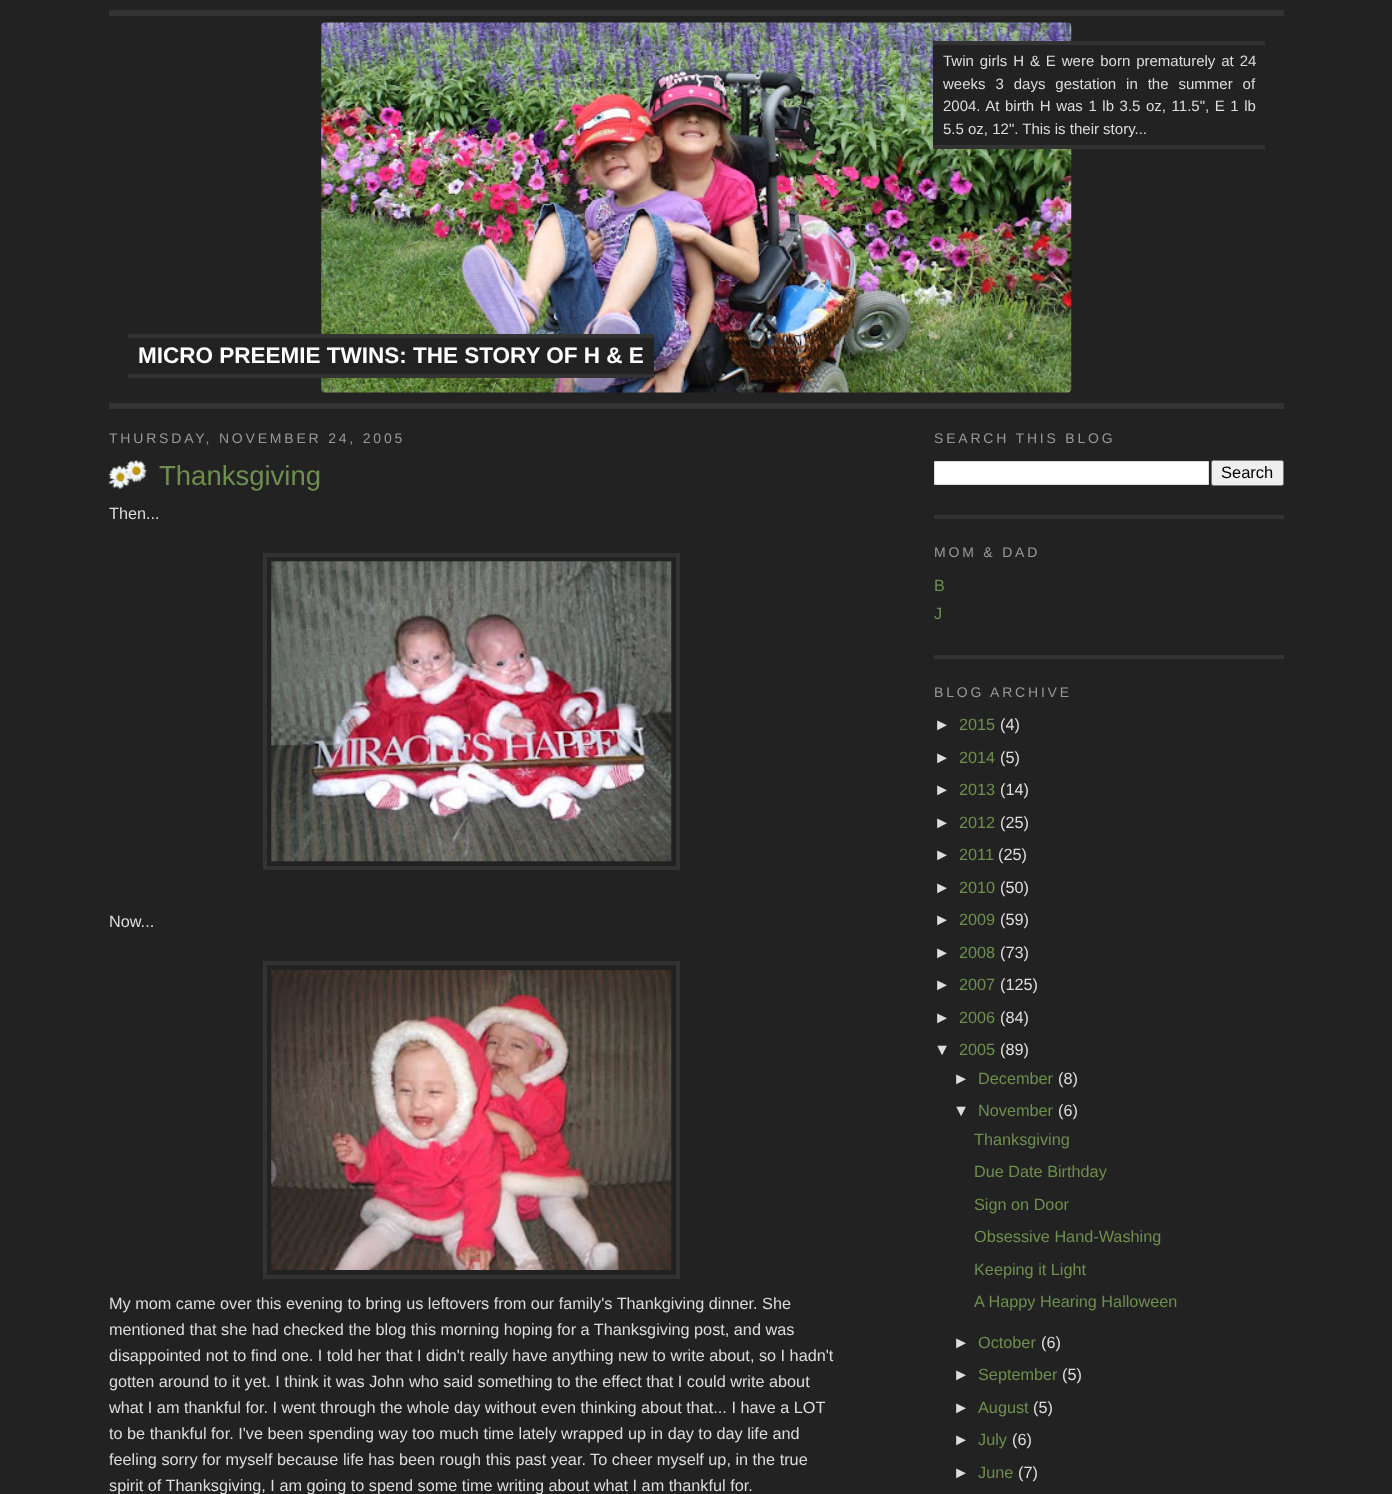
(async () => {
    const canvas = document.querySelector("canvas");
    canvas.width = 1392;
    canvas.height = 1494;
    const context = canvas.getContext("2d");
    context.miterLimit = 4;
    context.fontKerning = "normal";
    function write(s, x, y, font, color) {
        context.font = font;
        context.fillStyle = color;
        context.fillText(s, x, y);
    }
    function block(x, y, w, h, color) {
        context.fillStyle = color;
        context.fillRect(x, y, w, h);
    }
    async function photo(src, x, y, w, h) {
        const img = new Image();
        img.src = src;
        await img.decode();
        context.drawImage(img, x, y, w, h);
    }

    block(0, 0, 1392, 1494, "rgb(34, 34, 34)");
    block(109, 10, 1175, 6, "rgb(51, 51, 51)");
    block(109, 403, 1175, 6, "rgb(51, 51, 51)");
    await photo("media/1.png", 321, 22, 751, 371);
    block(933, 45, 139, 100, "rgb(34, 34, 34)");
    block(933, 41, 332, 4, "rgb(51, 51, 51)");
    block(933, 145, 332, 4, "rgb(51, 51, 51)");
    context.wordSpacing = "1.75px";
    write("Twin girls H & E were born prematurely at 24", 943, 66, "15px Liberation Sans", "rgb(221, 221, 221)");
    context.wordSpacing = "5.75px";
    write("weeks 3 days gestation in the summer of", 943, 89, "15px Liberation Sans", "rgb(221, 221, 221)");
    context.wordSpacing = "1.4px";
    write("2004. At birth H was 1 lb 3.5 oz, 11.5\", E 1 lb", 943, 111, "15px Liberation Sans", "rgb(221, 221, 221)");
    context.wordSpacing = "0px";
    write("5.5 oz, 12\". This is their story...", 943, 134, "15px Liberation Sans", "rgb(221, 221, 221)");
    block(321, 338, 333, 36, "rgb(34, 34, 34)");
    block(128, 334, 526, 4, "rgb(51, 51, 51)");
    block(128, 374, 526, 4, "rgb(51, 51, 51)");
    write("MICRO PREEMIE TWINS: THE STORY OF H & E", 138, 363, "bold 22.5px Liberation Sans", "rgb(255, 255, 255)");
    context.letterSpacing = "2.8px";
    write("THURSDAY, NOVEMBER 24, 2005", 109, 443, "14px Liberation Sans", "rgb(153, 153, 153)");
    await photo("media/2.png", 108, 460, 39, 29);
    context.letterSpacing = "0px";
    write("Thanksgiving", 159, 485, "27.5px Liberation Sans", "rgb(110, 143, 78)");
    write("Then...", 109, 519, "16.25px Liberation Sans", "rgb(221, 221, 221)");
    context.strokeStyle = "rgb(51, 51, 51)";
    context.lineWidth = 4;
    context.strokeRect(265, 555, 413, 313);
    await photo("media/3.png", 271, 561, 401, 301);
    write("Now...", 109, 927, "16.25px Liberation Sans", "rgb(221, 221, 221)");
    context.strokeRect(265, 963, 413, 314);
    await photo("media/4.png", 271, 970, 401, 300);
    write("My mom came over this evening to bring us leftovers from our family's Thankgiving dinner. She", 109, 1309, "16.25px Liberation Sans", "rgb(221, 221, 221)");
    write("mentioned that she had checked the blog this morning hoping for a Thanksgiving post, and was", 109, 1335, "16.25px Liberation Sans", "rgb(221, 221, 221)");
    write("disappointed not to find one. I told her that I didn't really have anything new to write about, so I hadn't", 109, 1361, "16.25px Liberation Sans", "rgb(221, 221, 221)");
    write("gotten around to it yet. I think it was John who said something to the effect that I could write about", 109, 1387, "16.25px Liberation Sans", "rgb(221, 221, 221)");
    write("what I am thankful for. I went through the whole day without even thinking about that... I have a LOT", 109, 1413, "16.25px Liberation Sans", "rgb(221, 221, 221)");
    write("to be thankful for. I've been spending way too much time lately wrapped up in day to day life and", 109, 1439, "16.25px Liberation Sans", "rgb(221, 221, 221)");
    write("feeling sorry for myself because life has been rough this past year.", 109, 1465, "16.25px Liberation Sans", "rgb(221, 221, 221)");
    write("To cheer myself up, in the true", 590, 1465, "16.25px Liberation Sans", "rgb(221, 221, 221)");
    write("spirit of Thanksgiving, I am going to spend some time writing about what I am thankful for.", 109, 1491, "16.25px Liberation Sans", "rgb(221, 221, 221)");
    block(934, 515, 350, 4, "rgb(51, 51, 51)");
    context.letterSpacing = "2.8px";
    write("SEARCH THIS BLOG", 934, 443, "14px Liberation Sans", "rgb(153, 153, 153)");
    context.fillStyle = "rgb(255, 255, 255)";
    context.beginPath();
    context.rect(934.5, 461.5, 274, 23);
    context.fill();
    context.strokeStyle = "rgb(221, 221, 221)";
    context.lineWidth = 1;
    context.stroke();
    context.fillStyle = "rgb(239, 239, 239)";
    context.beginPath();
    context.roundRect(1211.5, 460.5, 72, 25, 2);
    context.fill();
    context.strokeStyle = "rgb(118, 118, 118)";
    context.stroke();
    context.letterSpacing = "0px";
    write("Search", 1221, 478, "16.5px Liberation Sans", "rgb(0, 0, 0)");
    block(934, 655, 350, 4, "rgb(51, 51, 51)");
    context.letterSpacing = "2.8px";
    write("MOM & DAD", 934, 557, "14px Liberation Sans", "rgb(153, 153, 153)");
    context.letterSpacing = "0px";
    write("B", 934, 591, "16.25px Liberation Sans", "rgb(110, 143, 78)");
    write("J", 934, 619, "16.25px Liberation Sans", "rgb(110, 143, 78)");
    context.letterSpacing = "2.8px";
    write("BLOG ARCHIVE", 934, 697, "14px Liberation Sans", "rgb(153, 153, 153)");
    context.letterSpacing = "0px";
    write("►", 934, 730, "16.25px Liberation Sans", "rgb(221, 221, 221)");
    write("2015", 959, 730, "16.25px Liberation Sans", "rgb(110, 143, 78)");
    write("(4)", 1000, 730, "16.25px Liberation Sans", "rgb(221, 221, 221)");
    write("►", 934, 763, "16.25px Liberation Sans", "rgb(221, 221, 221)");
    write("2014", 959, 763, "16.25px Liberation Sans", "rgb(110, 143, 78)");
    write("(5)", 1000, 763, "16.25px Liberation Sans", "rgb(221, 221, 221)");
    write("►", 934, 795, "16.25px Liberation Sans", "rgb(221, 221, 221)");
    write("2013", 959, 795, "16.25px Liberation Sans", "rgb(110, 143, 78)");
    write("(14)", 1000, 795, "16.25px Liberation Sans", "rgb(221, 221, 221)");
    write("►", 934, 828, "16.25px Liberation Sans", "rgb(221, 221, 221)");
    write("2012", 959, 828, "16.25px Liberation Sans", "rgb(110, 143, 78)");
    write("(25)", 1000, 828, "16.25px Liberation Sans", "rgb(221, 221, 221)");
    write("►", 934, 860, "16.25px Liberation Sans", "rgb(221, 221, 221)");
    write("2011", 959, 860, "16.25px Liberation Sans", "rgb(110, 143, 78)");
    write("(25)", 998, 860, "16.25px Liberation Sans", "rgb(221, 221, 221)");
    write("►", 934, 893, "16.25px Liberation Sans", "rgb(221, 221, 221)");
    write("2010", 959, 893, "16.25px Liberation Sans", "rgb(110, 143, 78)");
    write("(50)", 1000, 893, "16.25px Liberation Sans", "rgb(221, 221, 221)");
    write("►", 934, 925, "16.25px Liberation Sans", "rgb(221, 221, 221)");
    write("2009", 959, 925, "16.25px Liberation Sans", "rgb(110, 143, 78)");
    write("(59)", 1000, 925, "16.25px Liberation Sans", "rgb(221, 221, 221)");
    write("►", 934, 958, "16.25px Liberation Sans", "rgb(221, 221, 221)");
    write("2008", 959, 958, "16.25px Liberation Sans", "rgb(110, 143, 78)");
    write("(73)", 1000, 958, "16.25px Liberation Sans", "rgb(221, 221, 221)");
    write("►", 934, 990, "16.25px Liberation Sans", "rgb(221, 221, 221)");
    write("2007", 959, 990, "16.25px Liberation Sans", "rgb(110, 143, 78)");
    write("(125)", 1000, 990, "16.25px Liberation Sans", "rgb(221, 221, 221)");
    write("►", 934, 1023, "16.25px Liberation Sans", "rgb(221, 221, 221)");
    write("2006", 959, 1023, "16.25px Liberation Sans", "rgb(110, 143, 78)");
    write("(84)", 1000, 1023, "16.25px Liberation Sans", "rgb(221, 221, 221)");
    write("▼", 934, 1055, "16.25px Liberation Sans", "rgb(221, 221, 221)");
    write("2005", 959, 1055, "16.25px Liberation Sans", "rgb(110, 143, 78)");
    write("(89)", 1000, 1055, "16.25px Liberation Sans", "rgb(221, 221, 221)");
    write("►", 953, 1084, "16.25px Liberation Sans", "rgb(221, 221, 221)");
    write("December", 978, 1084, "16.25px Liberation Sans", "rgb(110, 143, 78)");
    write("(8)", 1058, 1084, "16.25px Liberation Sans", "rgb(221, 221, 221)");
    write("▼", 953, 1116, "16.25px Liberation Sans", "rgb(221, 221, 221)");
    write("November", 978, 1116, "16.25px Liberation Sans", "rgb(110, 143, 78)");
    write("(6)", 1058, 1116, "16.25px Liberation Sans", "rgb(221, 221, 221)");
    write("Thanksgiving", 974, 1145, "16.25px Liberation Sans", "rgb(110, 143, 78)");
    write("Due Date Birthday", 974, 1177, "16.25px Liberation Sans", "rgb(110, 143, 78)");
    write("Sign on Door", 974, 1210, "16.25px Liberation Sans", "rgb(110, 143, 78)");
    write("Obsessive Hand-Washing", 974, 1242, "16.25px Liberation Sans", "rgb(110, 143, 78)");
    write("Keeping it Light", 974, 1275, "16.25px Liberation Sans", "rgb(110, 143, 78)");
    write("A Happy Hearing Halloween", 974, 1307, "16.25px Liberation Sans", "rgb(110, 143, 78)");
    write("►", 953, 1348, "16.25px Liberation Sans", "rgb(221, 221, 221)");
    write("October", 978, 1348, "16.25px Liberation Sans", "rgb(110, 143, 78)");
    write("(6)", 1041, 1348, "16.25px Liberation Sans", "rgb(221, 221, 221)");
    write("►", 953, 1380, "16.25px Liberation Sans", "rgb(221, 221, 221)");
    write("September", 978, 1380, "16.25px Liberation Sans", "rgb(110, 143, 78)");
    write("(5)", 1062, 1380, "16.25px Liberation Sans", "rgb(221, 221, 221)");
    write("►", 953, 1413, "16.25px Liberation Sans", "rgb(221, 221, 221)");
    write("August", 978, 1413, "16.25px Liberation Sans", "rgb(110, 143, 78)");
    write("(5)", 1033, 1413, "16.25px Liberation Sans", "rgb(221, 221, 221)");
    write("►", 953, 1445, "16.25px Liberation Sans", "rgb(221, 221, 221)");
    write("July", 978, 1445, "16.25px Liberation Sans", "rgb(110, 143, 78)");
    write("(6)", 1012, 1445, "16.25px Liberation Sans", "rgb(221, 221, 221)");
    write("►", 953, 1478, "16.25px Liberation Sans", "rgb(221, 221, 221)");
    write("June", 978, 1478, "16.25px Liberation Sans", "rgb(110, 143, 78)");
    write("(7)", 1018, 1478, "16.25px Liberation Sans", "rgb(221, 221, 221)");
})();
